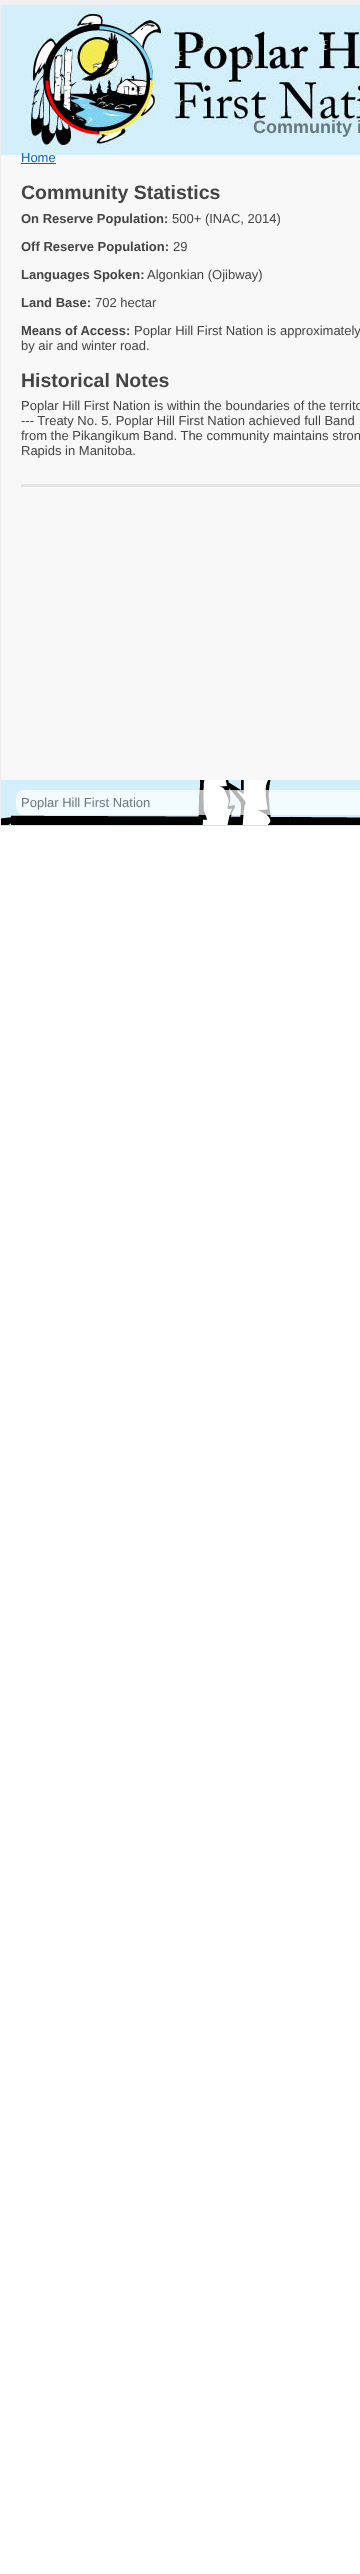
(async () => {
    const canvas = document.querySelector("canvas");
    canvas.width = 360;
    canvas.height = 2574;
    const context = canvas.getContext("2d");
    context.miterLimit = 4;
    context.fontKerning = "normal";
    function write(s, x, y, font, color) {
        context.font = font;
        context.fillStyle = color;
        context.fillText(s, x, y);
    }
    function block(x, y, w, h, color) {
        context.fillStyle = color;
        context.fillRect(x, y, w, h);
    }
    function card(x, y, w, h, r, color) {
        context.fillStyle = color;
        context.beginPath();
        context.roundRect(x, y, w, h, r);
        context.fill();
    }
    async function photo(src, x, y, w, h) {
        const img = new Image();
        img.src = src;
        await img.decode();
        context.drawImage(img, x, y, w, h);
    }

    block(0, 0, 360, 2574, "rgb(255, 255, 255)");
    await photo("media/1.png", 0, 0, 360, 5);
    block(1, 155, 359, 625, "rgb(248, 248, 248)");
    await photo("media/2.png", 1, 5, 359, 150);
    block(0, 825, 360, 1, "rgb(221, 221, 221)");
    block(0, 5, 1, 821, "rgb(238, 238, 238)");
    write("Community i", 253, 133, "bold 18px Liberation Sans", "rgb(105, 120, 125)");
    write("Home", 21, 162, "13px Liberation Sans", "rgb(0, 102, 204)");
    block(21, 163, 35, 1, "rgb(0, 102, 204)");
    block(21, 484, 339, 3, "rgb(228, 228, 228)");
    write("Community Statistics", 21, 199, "bold 19.5px Liberation Sans", "rgb(68, 68, 68)");
    write("On Reserve Population:", 21, 223, "bold 13px Liberation Sans", "rgb(68, 68, 68)");
    write("500+ (INAC, 2014)", 172, 223, "13px Liberation Sans", "rgb(68, 68, 68)");
    write("Off Reserve Population:", 21, 251, "bold 13px Liberation Sans", "rgb(68, 68, 68)");
    write("29", 173, 251, "13px Liberation Sans", "rgb(68, 68, 68)");
    write("Languages Spoken:", 21, 279, "bold 13px Liberation Sans", "rgb(68, 68, 68)");
    write("Algonkian (Ojibway)", 147, 279, "13px Liberation Sans", "rgb(68, 68, 68)");
    write("Land Base:", 21, 307, "bold 13px Liberation Sans", "rgb(68, 68, 68)");
    write("702 hectar", 95, 307, "13px Liberation Sans", "rgb(68, 68, 68)");
    write("Means of Access:", 21, 335, "bold 13px Liberation Sans", "rgb(68, 68, 68)");
    write("Poplar Hill First Nation is approximately", 134, 335, "13px Liberation Sans", "rgb(68, 68, 68)");
    write("by air and winter road.", 21, 350, "13px Liberation Sans", "rgb(68, 68, 68)");
    write("Historical Notes", 21, 387, "bold 19.5px Liberation Sans", "rgb(68, 68, 68)");
    write("Poplar Hill First Nation is within the boundaries of the territo", 21, 410, "13px Liberation Sans", "rgb(68, 68, 68)");
    write("--- Treaty No. 5. Poplar Hill First Nation achieved full Band", 21, 425, "13px Liberation Sans", "rgb(68, 68, 68)");
    write("from the Pikangikum Band. The community maintains stron", 21, 440, "13px Liberation Sans", "rgb(68, 68, 68)");
    write("Rapids in Manitoba.", 21, 455, "13px Liberation Sans", "rgb(68, 68, 68)");
    await photo("media/3.png", 1, 780, 359, 45);
    card(16, 790, 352, 25, 8, "rgba(255, 255, 255, 0.7)");
    write("Poplar Hill First Nation", 21, 807, "13px Liberation Sans", "rgb(111, 120, 123)");
})();
